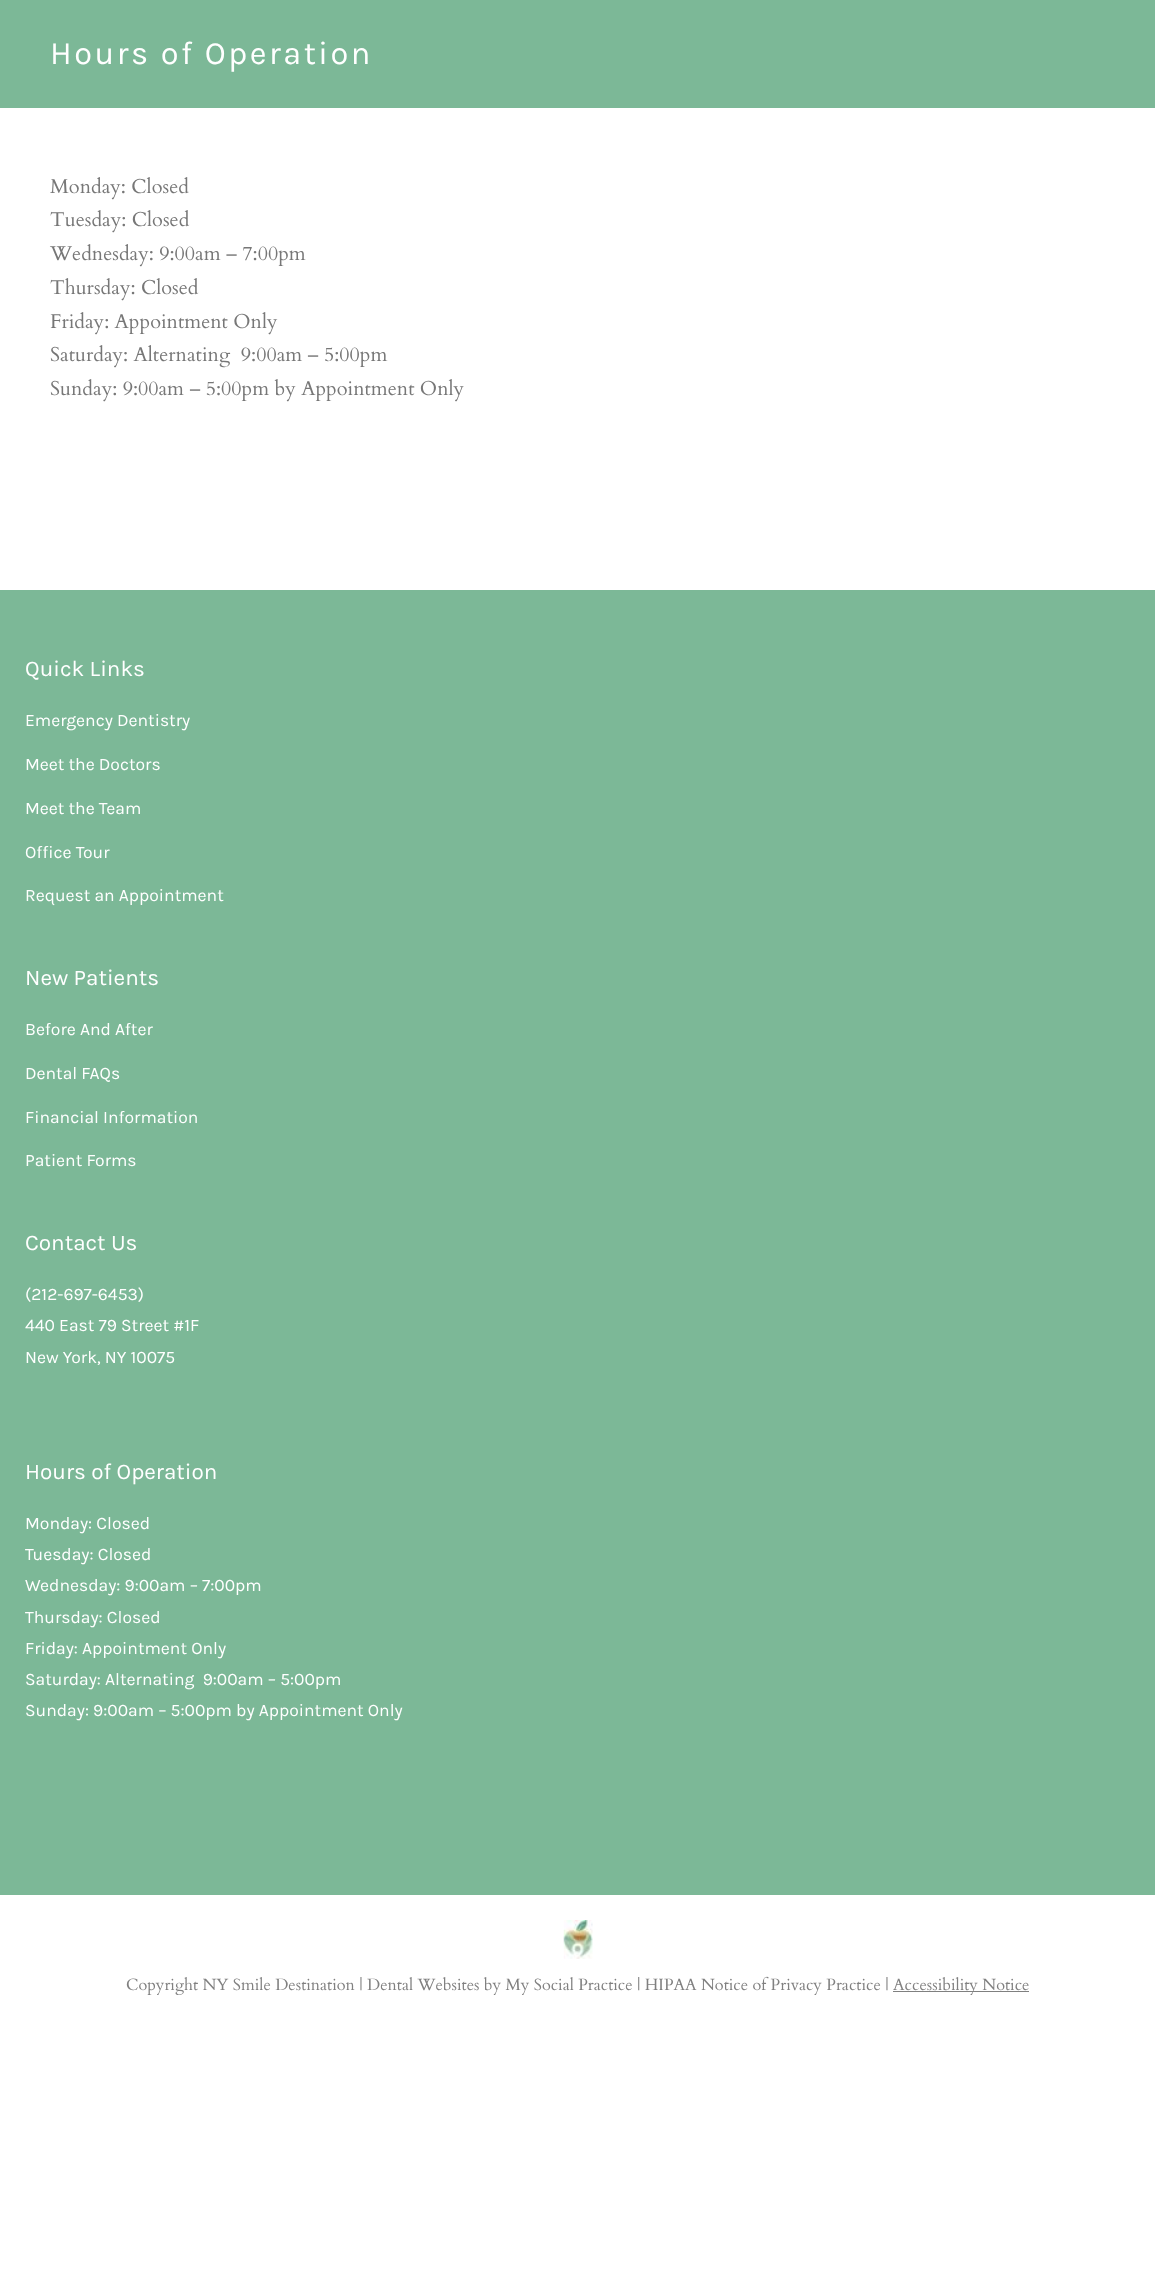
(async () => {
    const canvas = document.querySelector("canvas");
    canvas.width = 1155;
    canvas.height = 2292;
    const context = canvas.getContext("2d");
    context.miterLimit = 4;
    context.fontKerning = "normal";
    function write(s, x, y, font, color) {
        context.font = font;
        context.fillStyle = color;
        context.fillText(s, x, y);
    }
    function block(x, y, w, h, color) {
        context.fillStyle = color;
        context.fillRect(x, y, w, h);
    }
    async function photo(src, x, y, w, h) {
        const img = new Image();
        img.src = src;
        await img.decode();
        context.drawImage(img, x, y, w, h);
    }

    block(0, 0, 1155, 2292, "rgb(255, 255, 255)");
    block(0, 0, 1155, 108, "rgb(124, 184, 151)");
    context.letterSpacing = "2.5px";
    write("Hours of Operation", 50, 64, "32.5px Karla", "rgb(255, 255, 255)");
    context.letterSpacing = "0px";
    write("Monday: Closed", 50, 193, "20px Cardo", "rgb(119, 119, 119)");
    write("Tuesday: Closed", 50, 226, "20px Cardo", "rgb(119, 119, 119)");
    write("Wednesday: 9:00am – 7:00pm", 50, 260, "20px Cardo", "rgb(119, 119, 119)");
    write("Thursday: Closed", 50, 294, "20px Cardo", "rgb(119, 119, 119)");
    write("Friday: Appointment Only", 50, 328, "20px Cardo", "rgb(119, 119, 119)");
    write("Saturday: Alternating  9:00am – 5:00pm", 50, 361, "20px Cardo", "rgb(119, 119, 119)");
    write("Sunday: 9:00am – 5:00pm by Appointment Only", 50, 395, "20px Cardo", "rgb(119, 119, 119)");
    block(0, 590, 1155, 1305, "rgb(124, 184, 151)");
    write("Quick Links", 25, 676, "22.5px Karla", "rgb(255, 255, 255)");
    write("Emergency Dentistry", 25, 726, "17.5px Karla", "rgb(255, 255, 255)");
    write("Meet the Doctors", 25, 770, "17.5px Karla", "rgb(255, 255, 255)");
    write("Meet the Team", 25, 814, "17.5px Karla", "rgb(255, 255, 255)");
    write("Office Tour", 25, 858, "17.5px Karla", "rgb(255, 255, 255)");
    write("Request an Appointment", 25, 901, "17.5px Karla", "rgb(255, 255, 255)");
    write("New Patients", 25, 985, "22.5px Karla", "rgb(255, 255, 255)");
    write("Before And After", 25, 1035, "17.5px Karla", "rgb(255, 255, 255)");
    write("Dental FAQs", 25, 1079, "17.5px Karla", "rgb(255, 255, 255)");
    write("Financial Information", 25, 1123, "17.5px Karla", "rgb(255, 255, 255)");
    write("Patient Forms", 25, 1166, "17.5px Karla", "rgb(255, 255, 255)");
    write("Contact Us", 25, 1250, "22.5px Karla", "rgb(255, 255, 255)");
    write("(212-697-6453)", 25, 1300, "17.5px Karla", "rgb(255, 255, 255)");
    write("440 East 79 Street #1F", 25, 1331, "17.5px Karla", "rgb(255, 255, 255)");
    write("New York, NY 10075", 25, 1363, "17.5px Karla", "rgb(255, 255, 255)");
    write("Hours of Operation", 25, 1479, "22.5px Karla", "rgb(255, 255, 255)");
    write("Monday: Closed", 25, 1529, "17.5px Karla", "rgb(255, 255, 255)");
    write("Tuesday: Closed", 25, 1560, "17.5px Karla", "rgb(255, 255, 255)");
    write("Wednesday: 9:00am – 7:00pm", 25, 1591, "17.5px Karla", "rgb(255, 255, 255)");
    write("Thursday: Closed", 25, 1623, "17.5px Karla", "rgb(255, 255, 255)");
    write("Friday: Appointment Only", 25, 1654, "17.5px Karla", "rgb(255, 255, 255)");
    write("Saturday: Alternating  9:00am – 5:00pm", 25, 1685, "17.5px Karla", "rgb(255, 255, 255)");
    write("Sunday: 9:00am – 5:00pm by Appointment Only", 25, 1716, "17.5px Karla", "rgb(255, 255, 255)");
    await photo("media/1.png", 563, 1920, 30, 39);
    write("Copyright NY Smile Destination | Dental Websites by My Social Practice | HIPAA Notice of Privacy Practice |", 126, 1990, "16.25px Cardo", "rgb(128, 128, 128)");
    block(893, 1991, 136, 1, "rgb(128, 128, 128)");
    write("Accessibility Notice", 893, 1990, "16.25px Cardo", "rgb(128, 128, 128)");
})();
